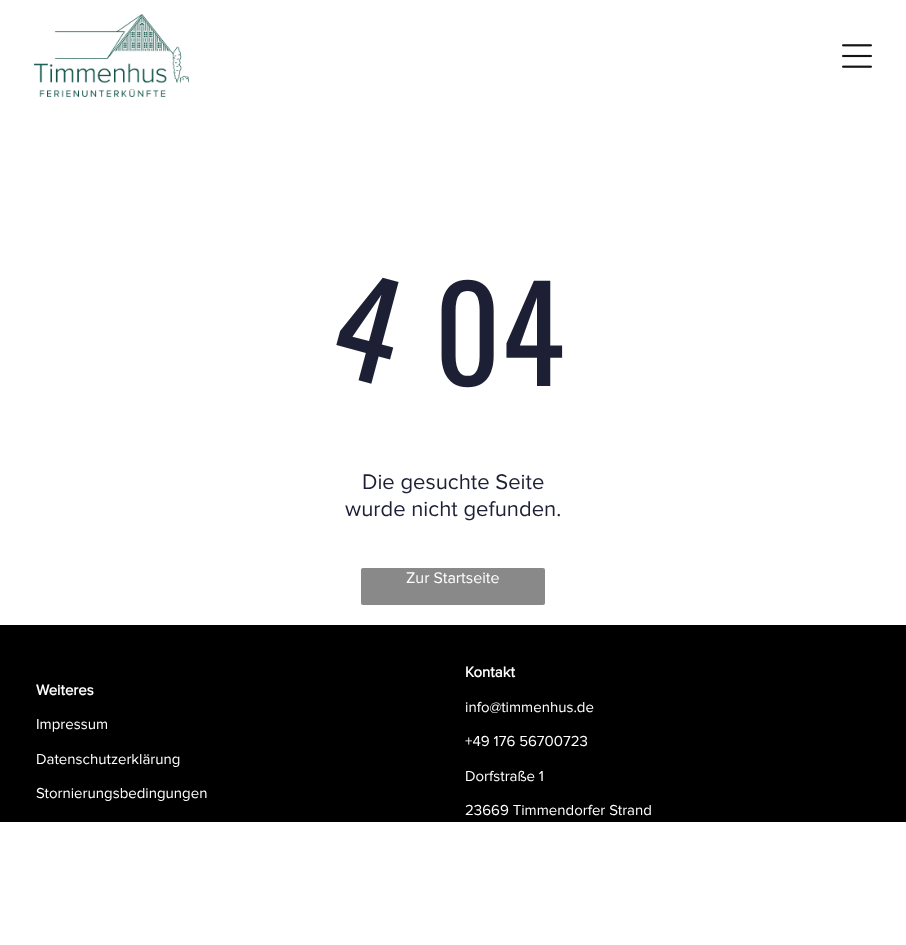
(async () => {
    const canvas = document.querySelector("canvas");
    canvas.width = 906;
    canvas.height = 945;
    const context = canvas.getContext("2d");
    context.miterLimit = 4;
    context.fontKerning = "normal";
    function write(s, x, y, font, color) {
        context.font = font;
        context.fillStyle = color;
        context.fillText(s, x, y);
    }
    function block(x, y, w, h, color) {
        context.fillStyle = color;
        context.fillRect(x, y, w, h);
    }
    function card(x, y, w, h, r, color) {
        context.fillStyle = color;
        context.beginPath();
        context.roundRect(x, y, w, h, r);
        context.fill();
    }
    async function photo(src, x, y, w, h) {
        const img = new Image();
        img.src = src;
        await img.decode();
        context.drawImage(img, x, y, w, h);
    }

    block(0, 0, 906, 945, "rgb(255, 255, 255)");
    await photo("media/1.png", 34, 14, 155, 83);
    await photo("media/2.png", 842, 44, 30, 24);
    context.font = "130px Oswald";
    context.fillStyle = "rgb(29, 32, 53)";
    context.save();
    context.translate(324, 371);
    context.rotate(15 * Math.PI / 180);
    context.fillText("4", 0, 0);
    context.restore();
    write("04", 434, 386, "130px Oswald", "rgb(29, 32, 53)");
    write("Die gesuchte Seite", 362, 489, "22px Proxima Nova", "rgb(29, 32, 53)");
    write("wurde nicht gefunden.", 345, 516, "22px Proxima Nova", "rgb(29, 32, 53)");
    card(361, 568, 184, 37, 2, "rgb(137, 137, 137)");
    write("Zur Startseite", 406, 583, "16px Proxima Nova", "rgb(255, 255, 255)");
    block(0, 625, 906, 197, "rgb(0, 0, 0)");
    write("Weiteres", 36, 695, "bold 15px Proxima Nova", "rgb(255, 255, 255)");
    write("Impressum", 36, 729, "15px Proxima Nova", "rgb(255, 255, 255)");
    write("Datenschutzerklärung", 36, 764, "15px Proxima Nova", "rgb(255, 255, 255)");
    write("Stornierungsbedingungen", 36, 798, "15px Proxima Nova", "rgb(255, 255, 255)");
    write("Kontakt", 465, 677, "bold 15px Proxima Nova", "rgb(255, 255, 255)");
    write("info@timmenhus.de", 465, 712, "15px Proxima Nova", "rgb(255, 255, 255)");
    write("+49 176 56700723", 465, 746, "15px Proxima Nova", "rgb(255, 255, 255)");
    write("Dorfstraße 1", 465, 781, "15px Proxima Nova", "rgb(255, 255, 255)");
    write("23669 Timmendorfer Strand", 465, 815, "15px Proxima Nova", "rgb(255, 255, 255)");
})();
